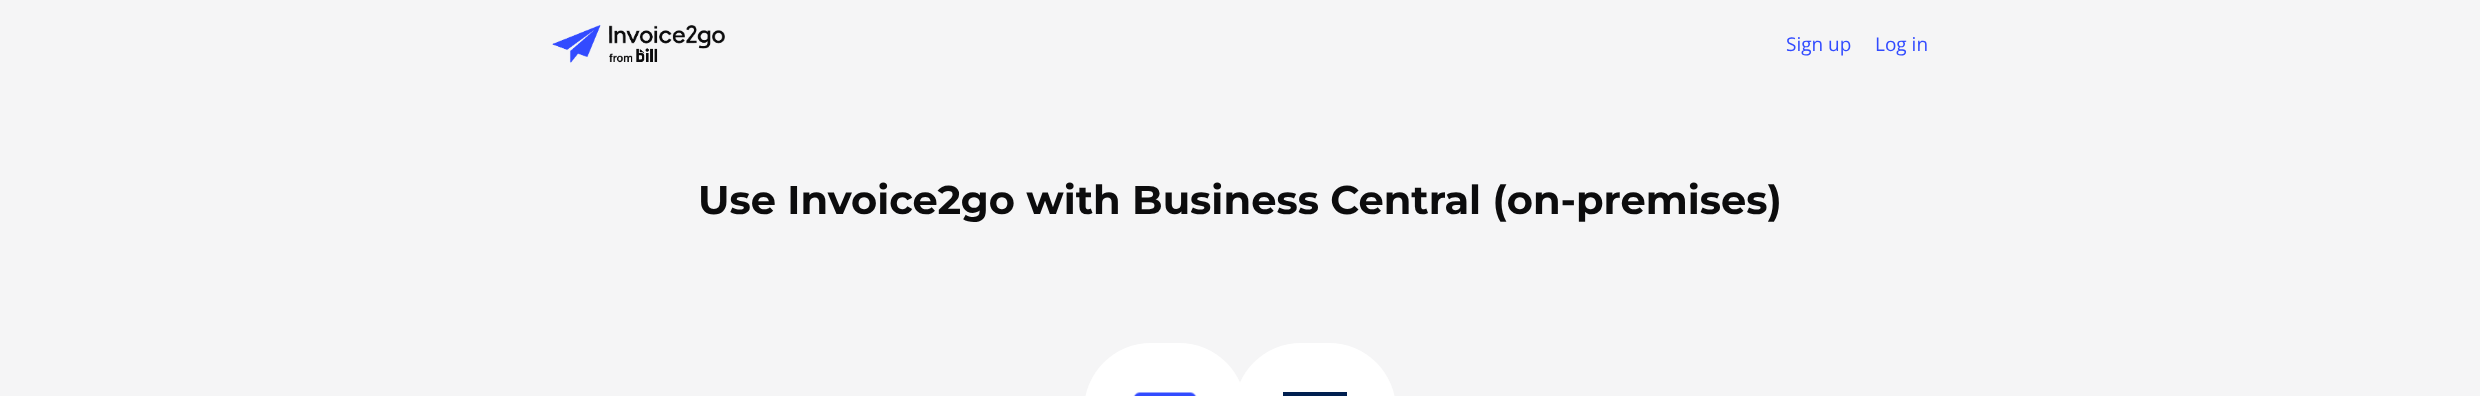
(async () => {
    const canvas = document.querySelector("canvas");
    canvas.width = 2480;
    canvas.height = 396;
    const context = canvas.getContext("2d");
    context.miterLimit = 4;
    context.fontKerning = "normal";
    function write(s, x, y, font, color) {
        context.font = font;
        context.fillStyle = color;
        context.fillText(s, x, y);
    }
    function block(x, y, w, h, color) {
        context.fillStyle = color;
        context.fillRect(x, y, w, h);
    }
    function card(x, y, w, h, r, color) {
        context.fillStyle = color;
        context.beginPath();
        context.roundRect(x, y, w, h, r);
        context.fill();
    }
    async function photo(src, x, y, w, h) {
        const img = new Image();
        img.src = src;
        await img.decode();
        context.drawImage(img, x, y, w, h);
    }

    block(0, 0, 2480, 396, "rgb(245, 245, 246)");
    await photo("media/1.png", 552, 25, 173, 38);
    write("Sign up", 1786, 51, "19px Open Sans", "rgb(50, 75, 255)");
    write("Log in", 1875, 51, "19px Open Sans", "rgb(50, 75, 255)");
    write("Use Invoice2go with Business Central (on-premises)", 698, 214, "bold 40px Montserrat", "rgb(12, 12, 13)");
    card(1084, 343, 162, 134, 81, "rgb(255, 255, 255)");
    await photo("media/2.png", 1133, 392, 64, 4);
    card(1234, 343, 162, 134, 81, "rgb(255, 255, 255)");
    block(1283, 392, 64, 4, "rgb(0, 32, 80)");
})();
